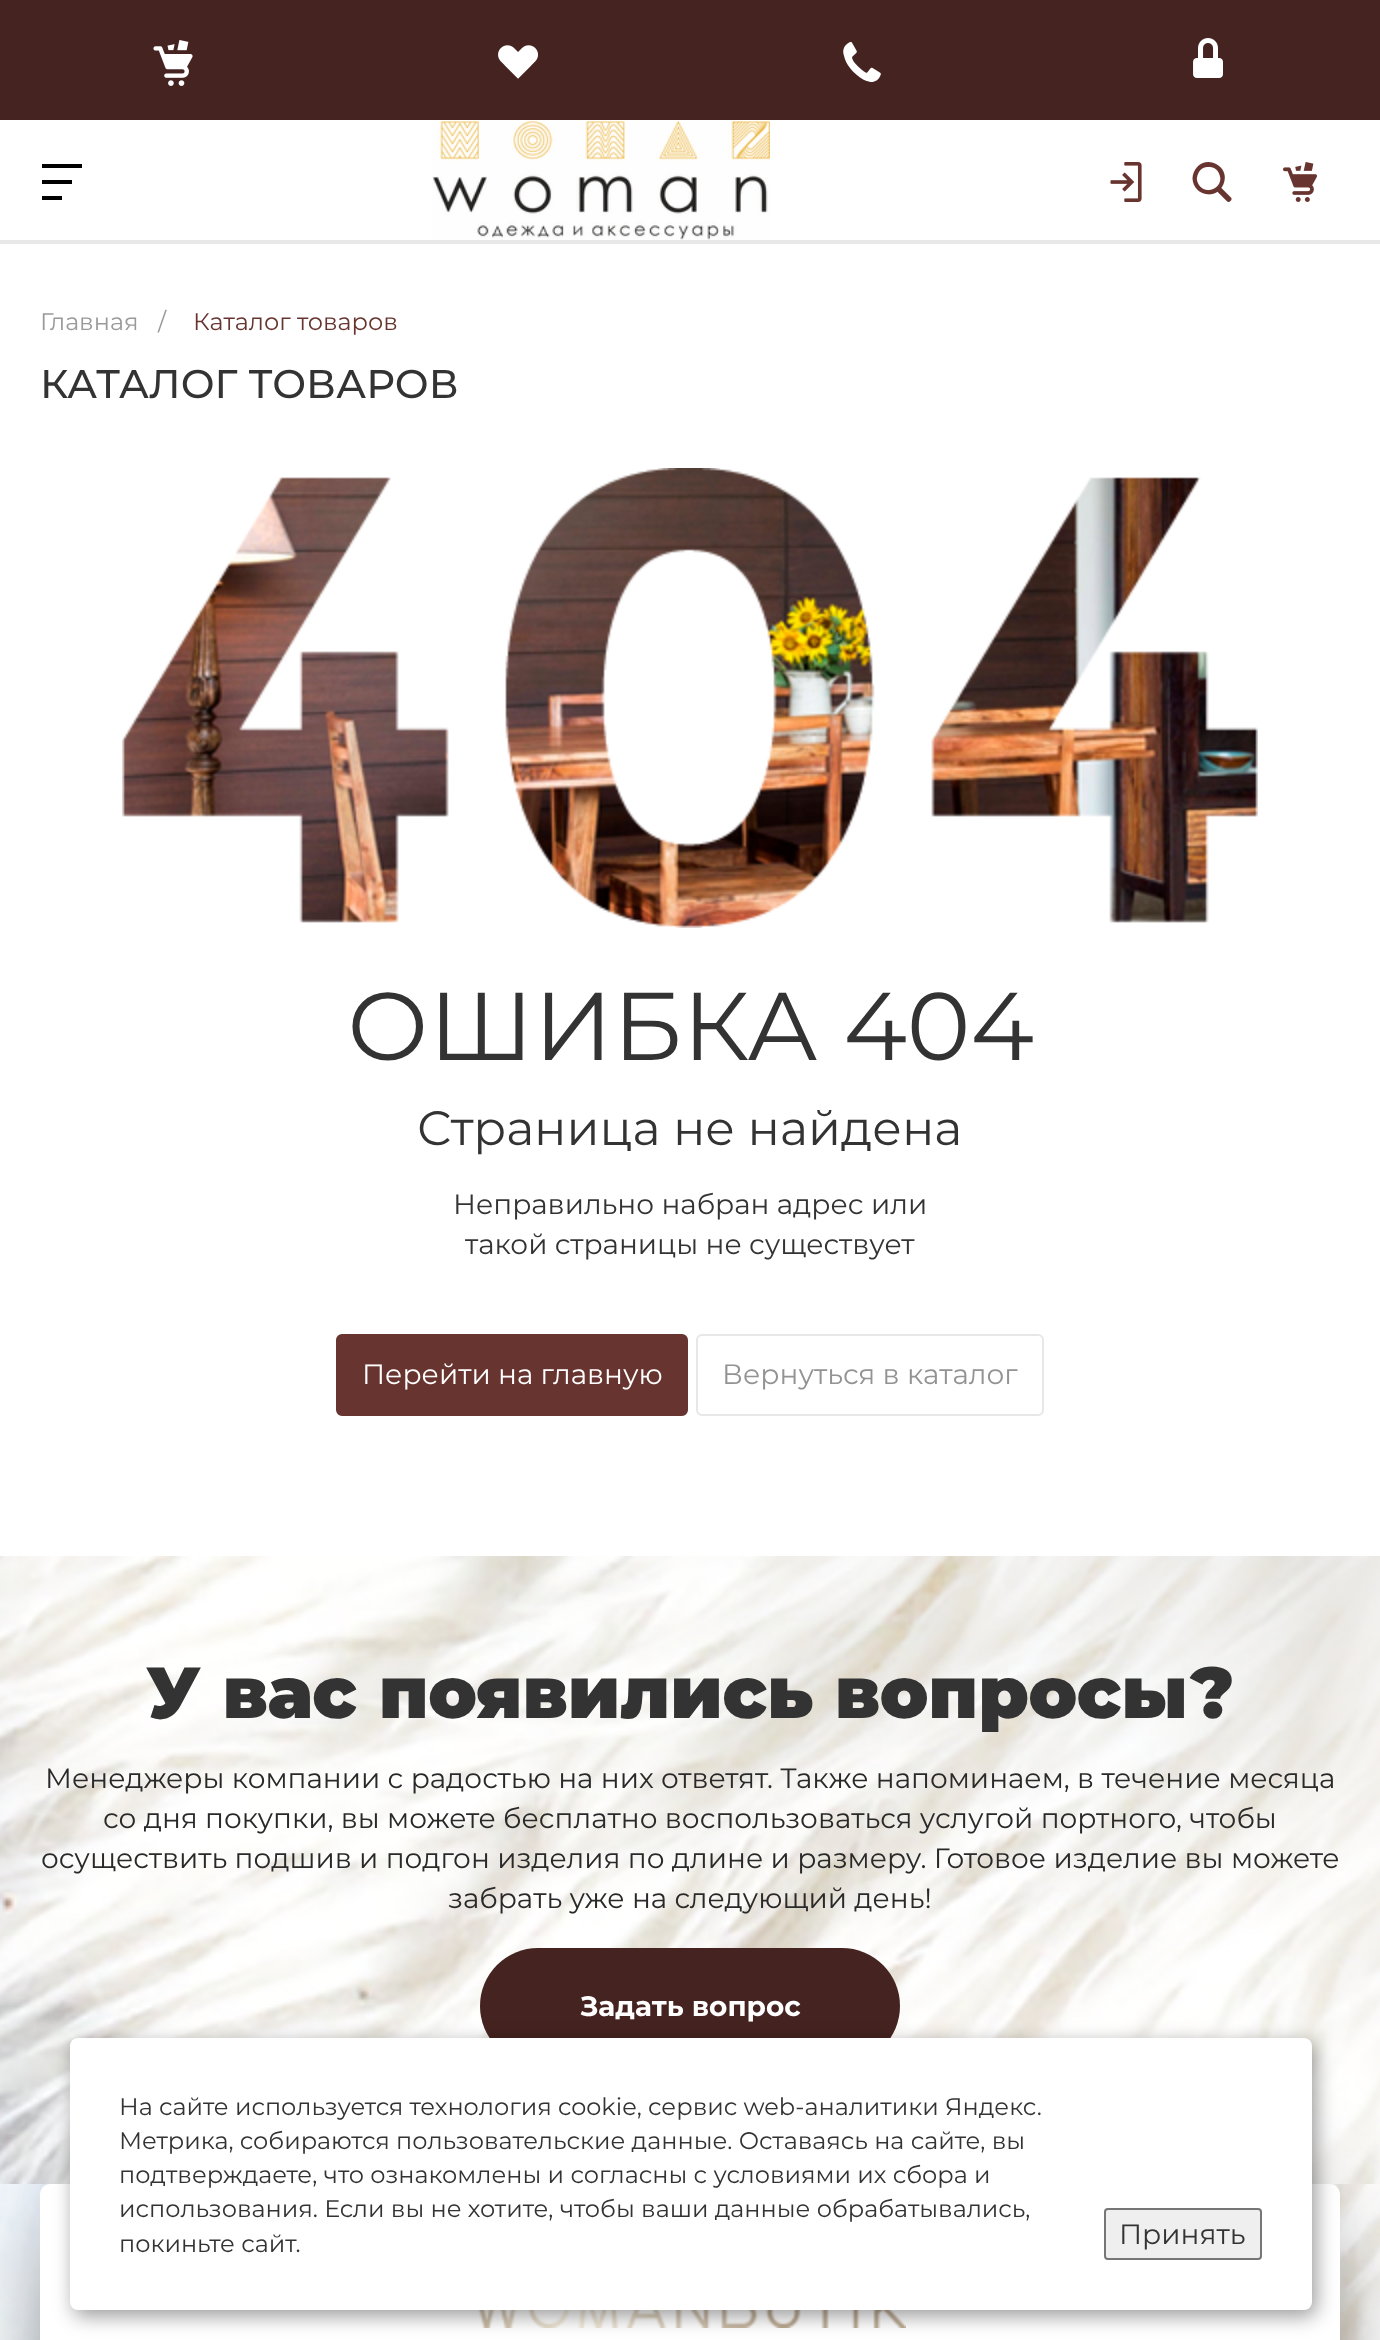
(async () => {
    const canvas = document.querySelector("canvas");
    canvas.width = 1380;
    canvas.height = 2340;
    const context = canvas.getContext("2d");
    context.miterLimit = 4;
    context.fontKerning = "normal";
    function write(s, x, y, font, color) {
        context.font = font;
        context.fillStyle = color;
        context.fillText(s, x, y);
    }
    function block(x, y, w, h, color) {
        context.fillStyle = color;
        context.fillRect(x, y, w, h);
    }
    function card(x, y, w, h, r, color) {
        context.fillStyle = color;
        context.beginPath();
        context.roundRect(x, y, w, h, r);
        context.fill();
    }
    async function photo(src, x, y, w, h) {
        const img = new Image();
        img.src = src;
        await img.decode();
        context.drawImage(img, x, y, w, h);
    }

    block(0, 0, 1380, 2340, "rgb(255, 255, 255)");
    block(0, 0, 1380, 120, "rgb(69, 35, 32)");
    await photo("media/1.png", 153, 40, 40, 46);
    await photo("media/2.png", 498, 45, 40, 34);
    await photo("media/3.png", 843, 42, 38, 41);
    await photo("media/4.png", 1193, 38, 30, 40);
    block(0, 240, 1380, 4, "rgb(232, 232, 232)");
    context.fillStyle = "rgb(0, 0, 0)";
    context.beginPath();
    context.moveTo(42, 164);
    context.lineTo(42, 168);
    context.lineTo(82, 168);
    context.lineTo(82, 164);
    context.closePath();
    context.moveTo(42, 180);
    context.lineTo(42, 184);
    context.lineTo(72, 184);
    context.lineTo(72, 180);
    context.closePath();
    context.moveTo(42, 196);
    context.lineTo(42, 200);
    context.lineTo(62, 200);
    context.lineTo(62, 196);
    context.closePath();
    context.fill();
    await photo("media/5.png", 432, 121, 338, 119);
    await photo("media/6.png", 1110, 162, 32, 40);
    await photo("media/7.png", 1192, 162, 40, 40);
    await photo("media/8.png", 1283, 162, 34, 40);
    write("Главная", 40, 330, "24px Montserrat", "rgb(154, 154, 154)");
    write("/", 158, 330, "24px Montserrat", "rgb(154, 154, 154)");
    write("Каталог товаров", 193, 330, "24px Montserrat", "rgb(104, 52, 48)");
    write("КАТАЛОГ ТОВАРОВ", 40, 398, "500 40px Montserrat", "rgb(51, 51, 51)");
    await photo("media/9.png", 122, 468, 1136, 460);
    write("ОШИБКА 404", 347, 1060, "96px Montserrat", "rgb(51, 51, 51)");
    write("Страница не найдена", 417, 1145, "48px Montserrat", "rgb(51, 51, 51)");
    write("Неправильно набран адрес или", 453, 1214, "28px Montserrat", "rgb(51, 51, 51)");
    write("такой страницы не существует", 465, 1254, "28px Montserrat", "rgb(51, 51, 51)");
    context.fillStyle = "rgb(104, 52, 48)";
    context.beginPath();
    context.roundRect(337, 1335, 350, 80, 5);
    context.fill();
    context.strokeStyle = "rgb(104, 52, 48)";
    context.lineWidth = 2;
    context.stroke();
    write("Перейти на главную", 362, 1384, "28px Montserrat", "rgb(255, 255, 255)");
    context.beginPath();
    context.roundRect(697, 1335, 346, 80, 5);
    context.strokeStyle = "rgb(231, 231, 231)";
    context.stroke();
    write("Вернуться в каталог", 722, 1384, "28px Montserrat", "rgb(147, 147, 147)");
    await photo("media/10.png", 0, 1556, 1380, 628);
    write("У вас появились вопросы?", 146, 1718, "900 72px Montserrat", "rgb(51, 51, 51)");
    write("Менеджеры компании с радостью на них ответят. Также напоминаем, в течение месяца", 45, 1788, "28px Montserrat", "rgb(41, 41, 41)");
    write("со дня покупки, вы можете бесплатно воспользоваться услугой портного, чтобы", 103, 1828, "28px Montserrat", "rgb(41, 41, 41)");
    write("осуществить подшив и подгон изделия по длине и размеру. Готовое изделие вы можете", 41, 1868, "28px Montserrat", "rgb(41, 41, 41)");
    write("забрать уже на следующий день!", 448, 1908, "28px Montserrat", "rgb(41, 41, 41)");
    card(480, 1948, 420, 116, 58, "rgb(69, 35, 32)");
    write("Задать вопрос", 580, 2016, "bold 28px Montserrat", "rgb(255, 255, 255)");
    await photo("media/11.png", 0, 2184, 1380, 156);
    context.fillStyle = "rgb(0, 0, 0)";
    context.filter = "blur(65px)";
    context.beginPath();
    context.rect(90, 2234, 1200, 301);
    context.fill();
    context.filter = "none";
    card(40, 2184, 1300, 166, 10, "rgb(255, 255, 255)");
    await photo("media/12.png", 477, 2310, 429, 18);
    context.fillStyle = "rgba(0, 0, 0, 0.4)";
    context.filter = "blur(10px)";
    context.beginPath();
    context.roundRect(74, 2044, 1242, 272, 8);
    context.fill();
    context.filter = "none";
    card(70, 2038, 1242, 272, 8, "rgb(255, 255, 255)");
    write("На сайте используется технология cookie, сервис web-аналитики Яндекс.", 119, 2115, "24px Montserrat", "rgb(51, 51, 51)");
    write("Метрика, собираются пользовательские данные. Оставаясь на сайте, вы", 119, 2149, "24px Montserrat", "rgb(51, 51, 51)");
    write("подтверждаете, что ознакомлены и согласны с условиями их сбора и", 119, 2183, "24px Montserrat", "rgb(51, 51, 51)");
    write("использования. Если вы не хотите, чтобы ваши данные обрабатывались,", 119, 2217, "24px Montserrat", "rgb(51, 51, 51)");
    write("покиньте сайт.", 119, 2252, "24px Montserrat", "rgb(51, 51, 51)");
    context.fillStyle = "rgb(239, 239, 239)";
    context.beginPath();
    context.roundRect(1105, 2209, 156, 50, 3);
    context.fill();
    context.strokeStyle = "rgb(118, 118, 118)";
    context.stroke();
    write("Принять", 1119, 2244, "28px Montserrat", "rgb(51, 51, 51)");
})();
